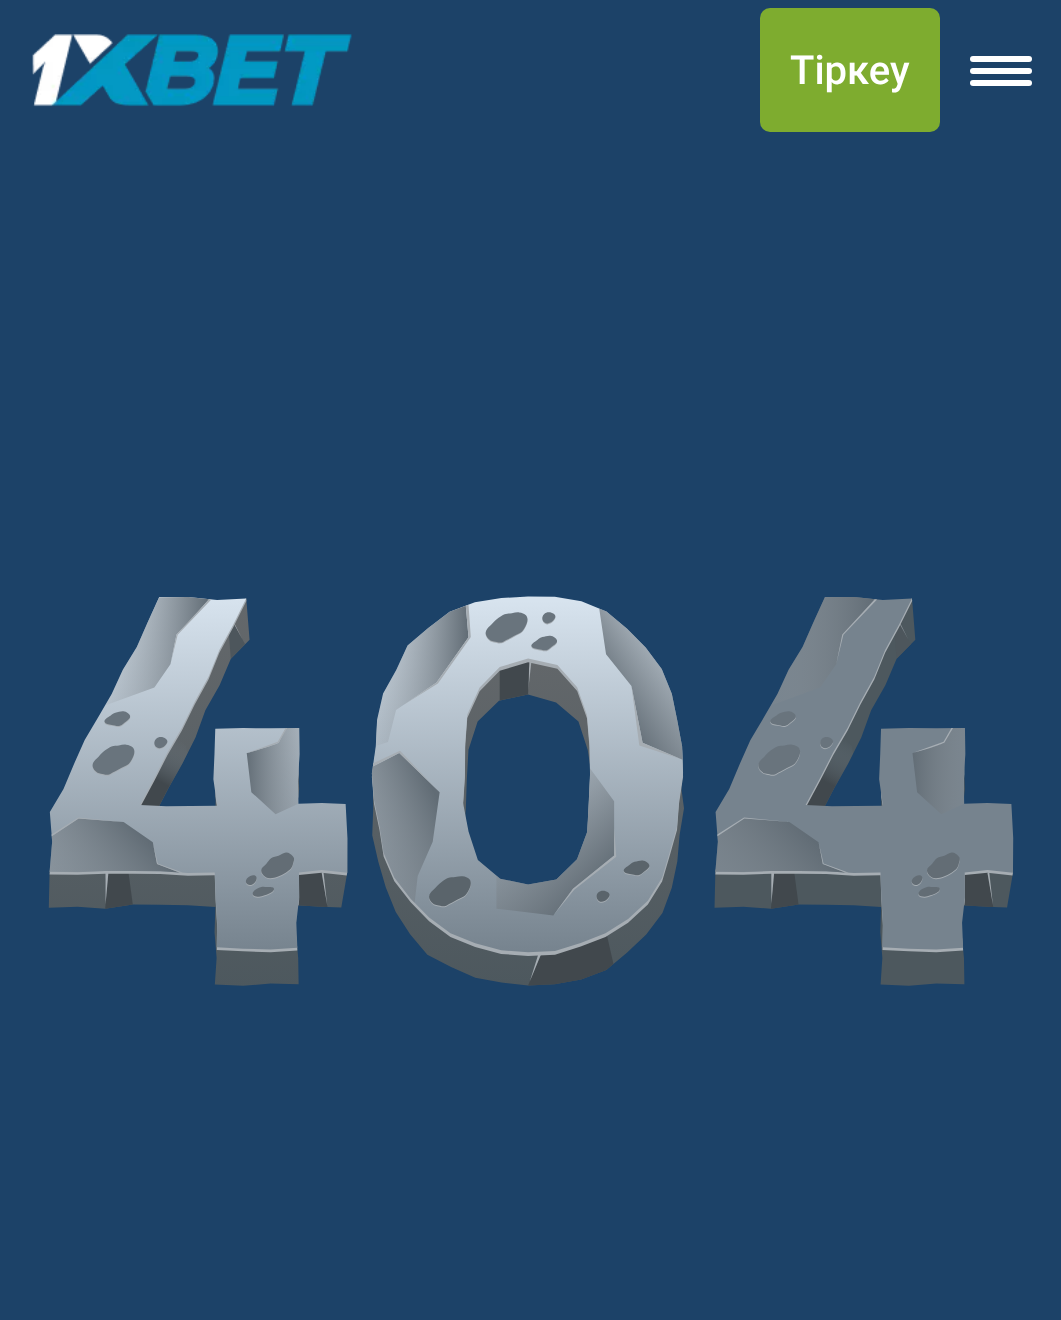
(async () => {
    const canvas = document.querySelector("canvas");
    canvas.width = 1061;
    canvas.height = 1320;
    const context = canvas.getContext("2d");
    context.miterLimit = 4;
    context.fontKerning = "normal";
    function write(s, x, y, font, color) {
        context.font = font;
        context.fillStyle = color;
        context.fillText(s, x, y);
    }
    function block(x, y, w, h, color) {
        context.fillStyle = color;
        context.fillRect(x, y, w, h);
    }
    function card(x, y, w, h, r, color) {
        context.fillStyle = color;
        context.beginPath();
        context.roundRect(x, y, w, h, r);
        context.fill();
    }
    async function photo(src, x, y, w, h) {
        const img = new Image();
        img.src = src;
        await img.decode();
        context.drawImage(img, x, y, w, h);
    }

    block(0, 0, 1061, 1320, "rgb(28, 66, 104)");
    await photo("media/1.png", 32, 34, 320, 73);
    card(760, 8, 180, 124, 10, "rgb(126, 172, 47)");
    write("Тіркеу", 790, 84, "500 40px Roboto", "rgb(255, 255, 255)");
    card(970, 56, 62, 6, 3, "rgb(255, 255, 255)");
    card(970, 68, 62, 6, 3, "rgb(255, 255, 255)");
    card(970, 80, 62, 6, 3, "rgb(255, 255, 255)");
    await photo("media/2.png", 48, 596, 966, 390);
})();
